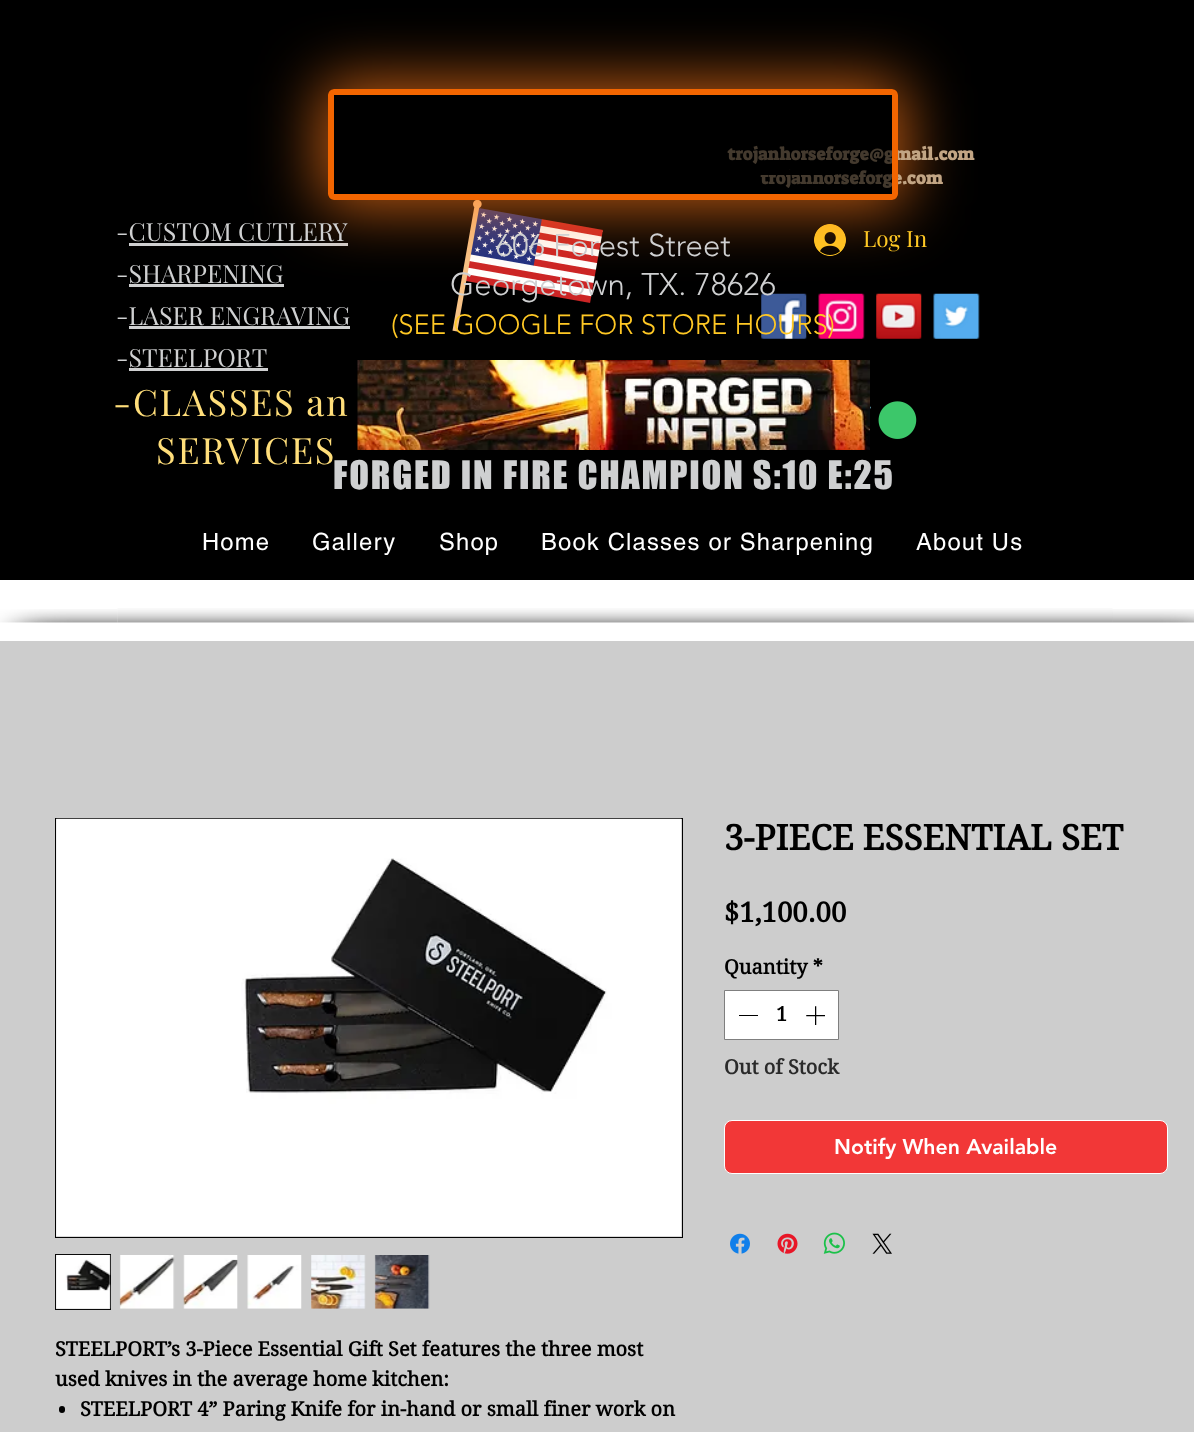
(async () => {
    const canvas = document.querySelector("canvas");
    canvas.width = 1194;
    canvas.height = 1432;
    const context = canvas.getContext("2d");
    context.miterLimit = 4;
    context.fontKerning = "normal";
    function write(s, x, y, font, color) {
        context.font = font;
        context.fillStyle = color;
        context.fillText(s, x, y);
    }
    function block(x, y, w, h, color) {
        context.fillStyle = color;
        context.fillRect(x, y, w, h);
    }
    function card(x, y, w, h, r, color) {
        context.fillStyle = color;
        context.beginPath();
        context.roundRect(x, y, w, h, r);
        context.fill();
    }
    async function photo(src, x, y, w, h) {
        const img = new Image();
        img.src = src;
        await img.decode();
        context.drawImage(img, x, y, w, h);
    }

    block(0, 0, 1194, 1432, "rgb(255, 255, 255)");
    block(0, 0, 1194, 580, "rgb(0, 0, 0)");
    await photo("media/1.png", 814, 224, 32, 32);
    await photo("media/2.png", 761, 293, 46, 46);
    await photo("media/3.png", 818, 293, 47, 46);
    await photo("media/4.png", 876, 293, 46, 46);
    await photo("media/5.png", 933, 293, 47, 46);
    block(129, 243, 219, 3, "rgb(207, 208, 209)");
    block(129, 284, 155, 3, "rgb(207, 208, 209)");
    await photo("media/7.png", 452, 200, 151, 132);
    context.save();
    context.beginPath();
    context.moveTo(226, 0);
    context.lineTo(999, 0);
    context.lineTo(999, 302);
    context.lineTo(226, 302);
    context.closePath();
    context.moveTo(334, 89);
    context.lineTo(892, 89);
    context.bezierCurveTo(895.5, 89, 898, 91.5, 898, 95);
    context.lineTo(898, 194);
    context.bezierCurveTo(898, 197.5, 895.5, 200, 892, 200);
    context.lineTo(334, 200);
    context.bezierCurveTo(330.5, 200, 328, 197.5, 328, 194);
    context.lineTo(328, 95);
    context.bezierCurveTo(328, 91.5, 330.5, 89, 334, 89);
    context.closePath();
    context.clip("evenodd");
    context.fillStyle = "rgba(255, 121, 25, 0.74)";
    context.filter = "blur(31px)";
    context.beginPath();
    context.roundRect(320, 81, 585, 127, 14);
    context.fill();
    context.filter = "none";
    context.restore();
    write("trojanhorseforge@gmail.com", 728, 160, "bold 17.5px Suez One", "rgb(194, 165, 132)");
    write("trojanhorseforge.com", 761, 184, "bold 17.5px Suez One", "rgb(194, 165, 132)");
    context.fillStyle = "rgba(0, 0, 0, 0.65)";
    context.beginPath();
    context.roundRect(331, 92, 564, 105, 3);
    context.fill();
    context.strokeStyle = "rgb(242, 101, 0)";
    context.lineWidth = 6;
    context.stroke();
    block(761, 170, 74, 5, "rgb(0, 0, 0)");
    write("Log In", 863, 247, "22.5px Playfair Display", "rgb(255, 200, 36)");
    await photo("media/6.png", 870, 401, 47, 38);
    write("-CUSTOM CUTLERY", 116, 241, "25px Playfair Display", "rgb(207, 208, 209)");
    write("-SHARPENING", 116, 283, "25px Playfair Display", "rgb(207, 208, 209)");
    write("-LASER ENGRAVING", 116, 325, "25px Playfair Display", "rgb(207, 208, 209)");
    block(129, 326, 221, 3, "rgb(207, 208, 209)");
    write("-STEELPORT", 116, 367, "25px Playfair Display", "rgb(207, 208, 209)");
    block(129, 368, 139, 3, "rgb(207, 208, 209)");
    context.letterSpacing = "1.8px";
    write("-CLASSES an", 113, 416, "36.25px Playfair Display", "rgb(255, 222, 122)");
    write("SERVICES", 156, 464, "36.25px Playfair Display", "rgb(255, 222, 122)");
    context.letterSpacing = "0px";
    write("606 Forest Street", 496, 256, "300 31.25px 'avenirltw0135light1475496'", "rgb(207, 208, 209)");
    write("Georgetown, TX. 78626", 450, 295, "300 31.25px 'avenirltw0135light1475496'", "rgb(207, 208, 209)");
    write("(SEE GOOGLE FOR STORE HOURS)", 391, 334, "300 27.5px 'avenirltw0135light1475496'", "rgb(255, 200, 36)");
    await photo("media/8.png", 357, 360, 513, 90);
    context.letterSpacing = "1.8px";
    write("FORGED IN FIRE CHAMPION S:10 E:25", 333, 489, "36.25px 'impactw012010'", "rgb(207, 208, 209)");
    context.letterSpacing = "1.2px";
    write("Home", 202, 550, "23.75px helvetica", "rgb(255, 255, 255)");
    write("Gallery", 312, 550, "23.75px helvetica", "rgb(255, 255, 255)");
    write("Shop", 439, 550, "23.75px helvetica", "rgb(255, 255, 255)");
    write("Book Classes or Sharpening", 541, 550, "23.75px helvetica", "rgb(255, 255, 255)");
    write("About Us", 916, 550, "23.75px helvetica", "rgb(255, 255, 255)");
    await photo("media/10.png", 117, 608, 996, 15);
    await photo("media/9.png", 0, 609, 118, 14);
    await photo("media/11.png", 1112, 609, 82, 14);
    block(0, 641, 1194, 791, "rgb(205, 205, 205)");
    context.letterSpacing = "0px";
    write("3-PIECE ESSENTIAL SET", 724, 850, "bold 35px 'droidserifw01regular'", "rgb(0, 0, 0)");
    write("$1,100.00", 724, 922, "bold 27.5px 'droidserifw01regular'", "rgb(0, 0, 0)");
    write("Quantity *", 724, 974, "bold 20px 'droidserifw01regular'", "rgb(0, 0, 0)");
    context.fillStyle = "rgb(255, 255, 255)";
    context.beginPath();
    context.rect(724.5, 990.5, 114, 49);
    context.fill();
    context.strokeStyle = "rgb(127, 127, 127)";
    context.lineWidth = 1;
    context.stroke();
    block(739, 1015, 19, 1, "rgb(0, 0, 0)");
    write("1", 776, 1021, "bold 20px 'droidserifw01regular'", "rgb(0, 0, 0)");
    await photo("media/12.png", 806, 1006, 19, 19);
    write("Out of Stock", 724, 1074, "bold 20px 'droidserifw01regular'", "rgb(42, 42, 42)");
    context.fillStyle = "rgb(242, 55, 55)";
    context.beginPath();
    context.roundRect(724.5, 1120.5, 443, 53, 7.5);
    context.fill();
    context.strokeStyle = "rgb(255, 255, 255)";
    context.stroke();
    write("Notify When Available", 834, 1154, "900 21.25px 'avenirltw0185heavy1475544'", "rgb(255, 255, 255)");
    await photo("media/13.png", 730, 1233, 20, 21);
    await photo("media/14.png", 777, 1233, 21, 21);
    await photo("media/15.png", 823, 1232, 22, 22);
    await photo("media/16.png", 872, 1233, 20, 21);
    context.strokeStyle = "rgb(2, 2, 2)";
    context.strokeRect(55.5, 818.5, 627, 419);
    await photo("media/17.png", 56, 818, 626, 419);
    context.strokeStyle = "rgb(10, 10, 10)";
    context.strokeRect(55.5, 1254.5, 55, 55);
    await photo("media/18.png", 56, 1255, 55, 54);
    await photo("media/19.png", 119, 1255, 56, 54);
    await photo("media/20.png", 183, 1255, 55, 54);
    await photo("media/21.png", 247, 1255, 55, 54);
    await photo("media/22.png", 311, 1255, 55, 54);
    await photo("media/23.png", 374, 1255, 56, 54);
    write("STEELPORT’s 3-Piece Essential Gift Set features the three most", 55, 1356, "bold 20px 'droidserifw01regular'", "rgb(0, 0, 0)");
    write("used knives in the average home kitchen:", 55, 1386, "bold 20px 'droidserifw01regular'", "rgb(0, 0, 0)");
    card(59, 1406, 6, 7, 3, "rgb(0, 0, 0)");
    write("STEELPORT 4” Paring Knife for in-hand or small finer work on", 80, 1416, "bold 20px 'droidserifw01regular'", "rgb(0, 0, 0)");
})();
